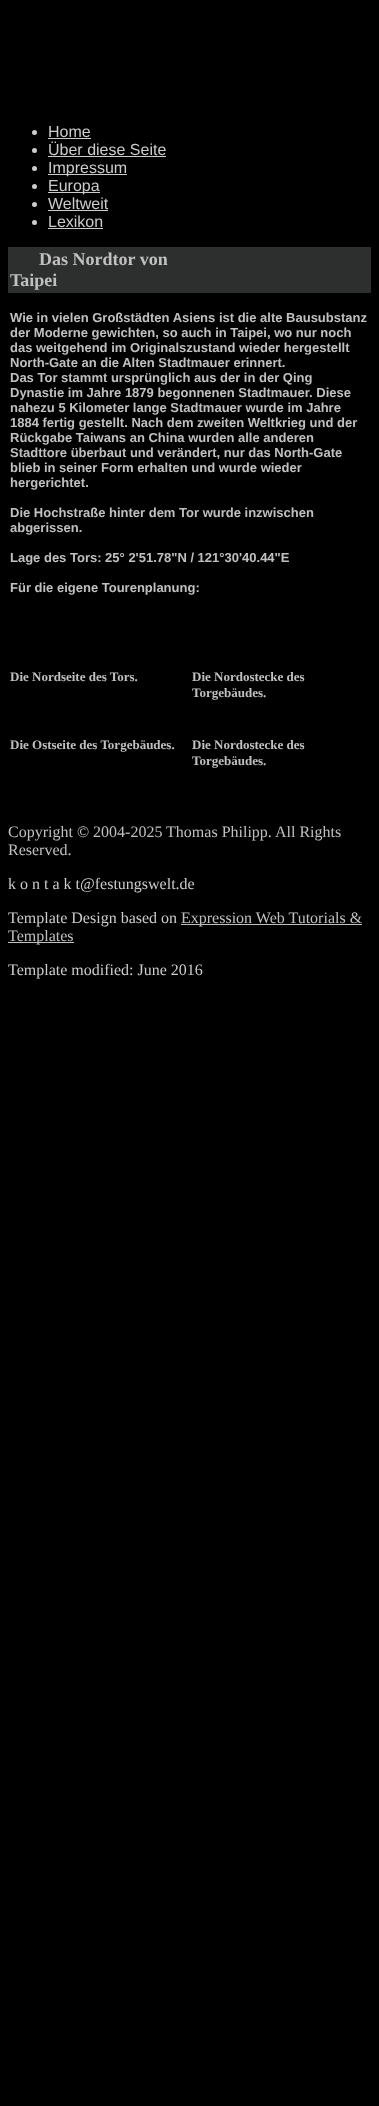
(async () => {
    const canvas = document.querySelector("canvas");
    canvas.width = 379;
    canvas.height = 2106;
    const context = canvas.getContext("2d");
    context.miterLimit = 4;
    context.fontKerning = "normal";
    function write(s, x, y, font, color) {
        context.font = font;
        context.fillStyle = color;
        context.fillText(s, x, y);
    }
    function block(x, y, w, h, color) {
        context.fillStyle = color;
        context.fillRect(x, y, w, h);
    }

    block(0, 0, 379, 2106, "rgb(0, 0, 0)");
    context.fillStyle = "rgb(204, 204, 204)";
    context.beginPath();
    context.arc(34.5, 132.5, 2.5, 0, Math.PI * 2);
    context.fill();
    write("Home", 48, 137, "16px Liberation Sans", "rgb(204, 204, 204)");
    block(48, 138, 43, 1, "rgb(204, 204, 204)");
    context.beginPath();
    context.arc(34.5, 150.5, 2.5, 0, Math.PI * 2);
    context.fill();
    write("Über diese Seite", 48, 155, "16px Liberation Sans", "rgb(204, 204, 204)");
    block(48, 156, 118, 1, "rgb(204, 204, 204)");
    context.beginPath();
    context.arc(34.5, 168.5, 2.5, 0, Math.PI * 2);
    context.fill();
    block(48, 174, 79, 1, "rgb(204, 204, 204)");
    write("Impressum", 48, 173, "16px Liberation Sans", "rgb(204, 204, 204)");
    context.beginPath();
    context.arc(34.5, 186.5, 2.5, 0, Math.PI * 2);
    context.fill();
    block(48, 192, 52, 1, "rgb(204, 204, 204)");
    write("Europa", 48, 191, "16px Liberation Sans", "rgb(204, 204, 204)");
    context.beginPath();
    context.arc(34.5, 204.5, 2.5, 0, Math.PI * 2);
    context.fill();
    write("Weltweit", 48, 209, "16px Liberation Sans", "rgb(204, 204, 204)");
    block(48, 210, 60, 1, "rgb(204, 204, 204)");
    context.beginPath();
    context.arc(34.5, 222.5, 2.5, 0, Math.PI * 2);
    context.fill();
    write("Lexikon", 48, 227, "16px Liberation Sans", "rgb(204, 204, 204)");
    block(48, 228, 55, 1, "rgb(204, 204, 204)");
    block(8, 247, 363, 46, "rgb(45, 46, 46)");
    write("Das Nordtor von", 39, 265, "bold 18px Liberation Serif", "rgb(192, 192, 192)");
    write("Taipei", 10, 286, "bold 18px Liberation Serif", "rgb(192, 192, 192)");
    write("Wie in vielen Großstädten Asiens ist die alte Bausubstanz", 10, 322, "bold 13px Liberation Sans", "rgb(192, 192, 192)");
    write("der Moderne gewichten, so auch in Taipei, wo nur noch", 10, 337, "bold 13px Liberation Sans", "rgb(192, 192, 192)");
    write("das weitgehend im Originalszustand wieder hergestellt", 10, 352, "bold 13px Liberation Sans", "rgb(192, 192, 192)");
    write("North-Gate an die Alten Stadtmauer erinnert.", 10, 367, "bold 13px Liberation Sans", "rgb(192, 192, 192)");
    write("Das Tor stammt ursprünglich aus der in der Qing", 10, 382, "bold 13px Liberation Sans", "rgb(192, 192, 192)");
    write("Dynastie im Jahre 1879 begonnenen Stadtmauer. Diese", 10, 397, "bold 13px Liberation Sans", "rgb(192, 192, 192)");
    write("nahezu 5 Kilometer lange Stadtmauer wurde im Jahre", 10, 412, "bold 13px Liberation Sans", "rgb(192, 192, 192)");
    write("1884 fertig gestellt. Nach dem zweiten Weltkrieg und der", 10, 427, "bold 13px Liberation Sans", "rgb(192, 192, 192)");
    write("Rückgabe Taiwans an China wurden alle anderen", 10, 442, "bold 13px Liberation Sans", "rgb(192, 192, 192)");
    write("Stadttore überbaut und verändert, nur das North-Gate", 10, 457, "bold 13px Liberation Sans", "rgb(192, 192, 192)");
    write("blieb in seiner Form erhalten und wurde wieder", 10, 472, "bold 13px Liberation Sans", "rgb(192, 192, 192)");
    write("hergerichtet.", 10, 487, "bold 13px Liberation Sans", "rgb(192, 192, 192)");
    write("Die Hochstraße hinter dem Tor wurde inzwischen", 10, 517, "bold 13px Liberation Sans", "rgb(192, 192, 192)");
    write("abgerissen.", 10, 532, "bold 13px Liberation Sans", "rgb(192, 192, 192)");
    write("Lage des Tors: 25° 2'51.78\"N / 121°30'40.44\"E", 10, 562, "bold 13px Liberation Sans", "rgb(192, 192, 192)");
    write("Für die eigene Tourenplanung:", 10, 592, "bold 13px Liberation Sans", "rgb(192, 192, 192)");
    write("Die Nordseite des Tors.", 10, 681, "bold 13px Liberation Serif", "rgb(192, 192, 192)");
    write("Die Nordostecke des", 192, 681, "bold 13px Liberation Serif", "rgb(192, 192, 192)");
    write("Torgebäudes.", 192, 697, "bold 13px Liberation Serif", "rgb(192, 192, 192)");
    write("Die Ostseite des Torgebäudes.", 10, 749, "bold 13px Liberation Serif", "rgb(192, 192, 192)");
    write("Die Nordostecke des", 192, 749, "bold 13px Liberation Serif", "rgb(192, 192, 192)");
    write("Torgebäudes.", 192, 765, "bold 13px Liberation Serif", "rgb(192, 192, 192)");
    write("Copyright © 2004-2025 Thomas Philipp. All Rights", 8, 837, "16px Liberation Serif", "rgb(192, 192, 192)");
    write("Reserved.", 8, 855, "16px Liberation Serif", "rgb(192, 192, 192)");
    write("k o n t a k t@festungswelt.de", 8, 889, "16px Liberation Serif", "rgb(204, 204, 204)");
    write("Template Design based on", 8, 923, "16px Liberation Serif", "rgb(204, 204, 204)");
    block(181, 924, 181, 1, "rgb(192, 192, 192)");
    write("Expression Web Tutorials &", 181, 923, "16px Liberation Serif", "rgb(192, 192, 192)");
    block(8, 942, 66, 1, "rgb(192, 192, 192)");
    write("Templates", 8, 941, "16px Liberation Serif", "rgb(192, 192, 192)");
    write("Template modified: June 2016", 8, 975, "16px Liberation Serif", "rgb(204, 204, 204)");
})();
